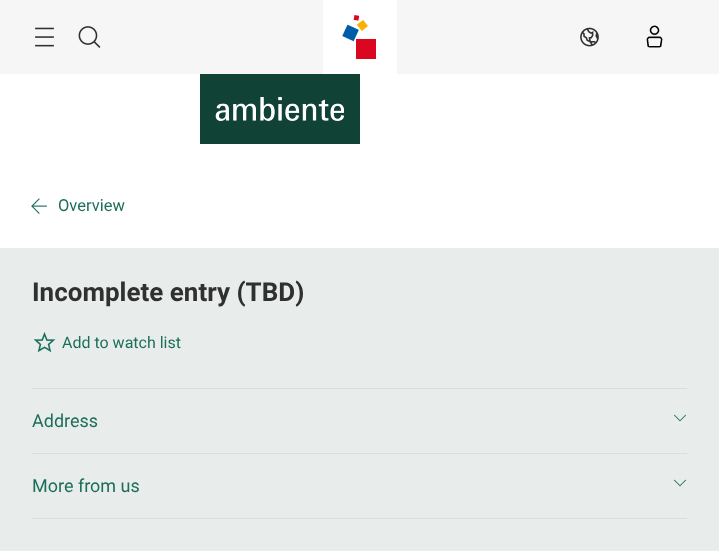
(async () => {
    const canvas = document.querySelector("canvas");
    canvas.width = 719;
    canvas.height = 558;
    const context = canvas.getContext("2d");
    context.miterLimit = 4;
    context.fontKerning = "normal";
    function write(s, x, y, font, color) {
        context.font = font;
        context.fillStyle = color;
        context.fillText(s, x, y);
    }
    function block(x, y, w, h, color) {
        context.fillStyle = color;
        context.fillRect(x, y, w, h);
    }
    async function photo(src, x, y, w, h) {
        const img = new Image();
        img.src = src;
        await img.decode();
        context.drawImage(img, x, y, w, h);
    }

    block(0, 0, 719, 558, "rgb(255, 255, 255)");
    block(0, 0, 719, 74, "rgb(246, 246, 246)");
    await photo("media/1.png", 35, 27, 19, 20);
    await photo("media/2.png", 78, 26, 23, 22);
    block(323, 0, 74, 74, "rgb(255, 255, 255)");
    await photo("media/3.png", 342, 15, 34, 44);
    await photo("media/4.png", 580, 27, 19, 20);
    await photo("media/5.png", 646, 25, 17, 23);
    block(200, 74, 160, 70, "rgb(17, 66, 54)");
    await photo("media/6.png", 215, 97, 129, 24);
    await photo("media/7.png", 31, 198, 16, 16);
    write("Overview", 58, 211, "16.5px Roboto", "rgb(28, 110, 90)");
    block(0, 248, 719, 303, "rgb(232, 237, 236)");
    write("Incomplete entry (TBD)", 32, 301, "bold 26px Roboto", "rgb(48, 48, 48)");
    await photo("media/8.png", 33, 332, 23, 21);
    write("Add to watch list", 62, 348, "16px Roboto", "rgb(28, 110, 90)");
    block(32, 388, 655, 1, "rgb(220, 221, 223)");
    block(32, 453, 655, 1, "rgb(220, 221, 223)");
    write("Address", 32, 427, "18px Roboto", "rgb(28, 110, 90)");
    await photo("media/9.png", 673, 414, 14, 8);
    block(32, 518, 655, 1, "rgb(220, 221, 223)");
    write("More from us", 32, 492, "18px Roboto", "rgb(28, 110, 90)");
    await photo("media/9.png", 673, 479, 14, 8);
})();
